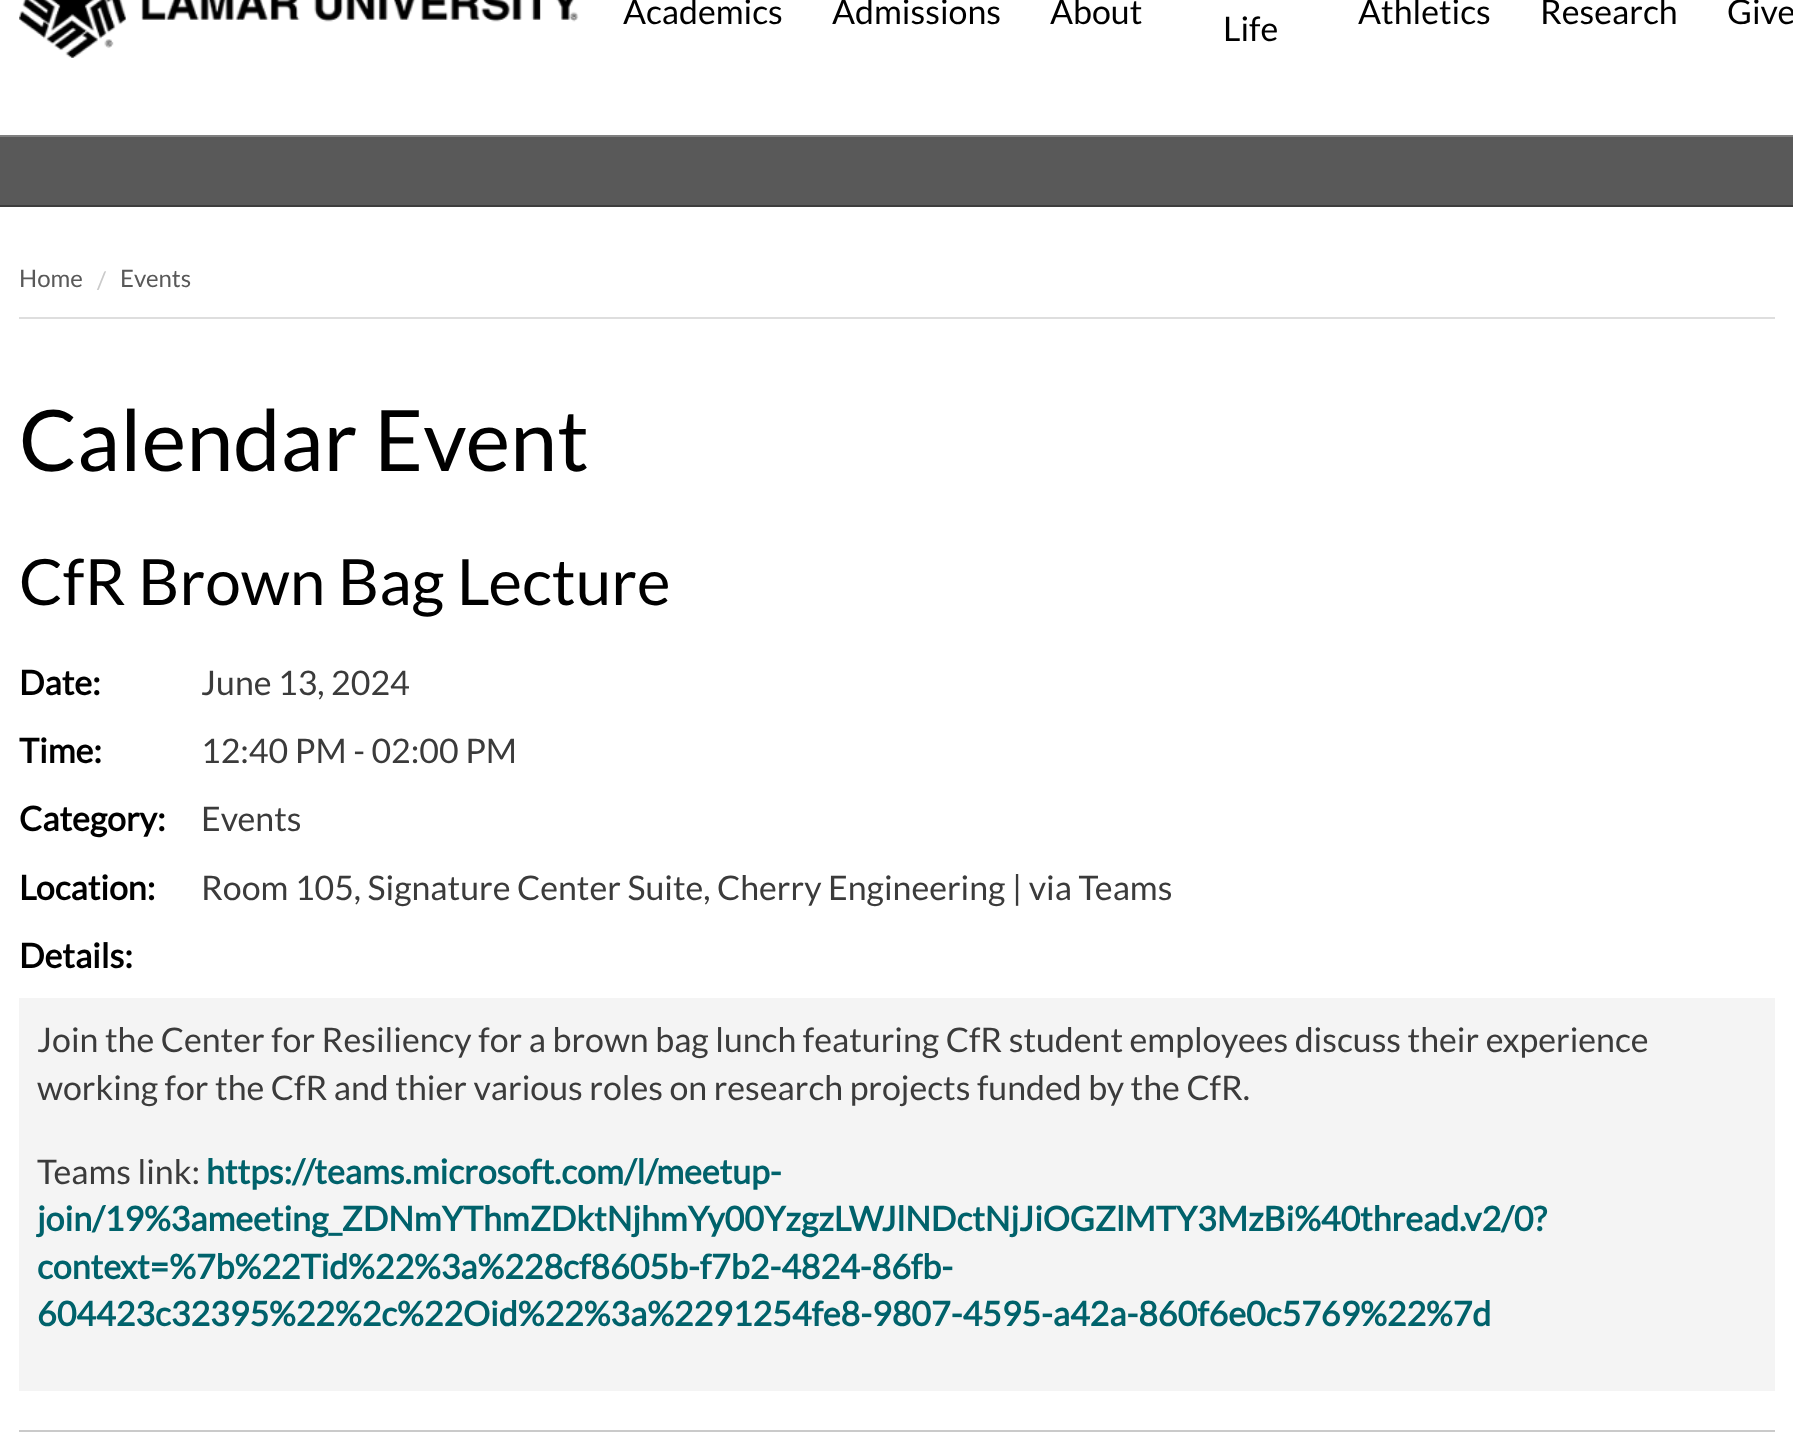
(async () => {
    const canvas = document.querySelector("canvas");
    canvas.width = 1793;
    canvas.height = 1454;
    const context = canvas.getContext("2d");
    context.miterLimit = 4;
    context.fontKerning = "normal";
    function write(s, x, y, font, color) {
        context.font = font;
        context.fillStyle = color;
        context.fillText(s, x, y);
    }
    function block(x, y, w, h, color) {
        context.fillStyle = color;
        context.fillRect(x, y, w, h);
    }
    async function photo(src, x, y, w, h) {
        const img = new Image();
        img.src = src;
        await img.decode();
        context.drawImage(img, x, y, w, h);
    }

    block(0, 0, 1793, 1454, "rgb(255, 255, 255)");
    block(0, 135, 1793, 2, "rgb(128, 128, 128)");
    await photo("media/1.png", 19, 0, 560, 58);
    write("Academics", 623, 24, "33.9px Lato", "rgb(0, 0, 0)");
    write("Admissions", 832, 24, "33.9px Lato", "rgb(0, 0, 0)");
    write("About", 1050, 24, "33.9px Lato", "rgb(0, 0, 0)");
    write("Athletics", 1358, 24, "33.9px Lato", "rgb(0, 0, 0)");
    write("Research", 1540, 24, "33.9px Lato", "rgb(0, 0, 0)");
    write("Give", 1727, 24, "33.9px Lato", "rgb(0, 0, 0)");
    write("Life", 1223, 41, "33.9px Lato", "rgb(0, 0, 0)");
    block(0, 137, 1793, 68, "rgb(89, 89, 89)");
    block(0, 205, 1793, 2, "rgb(61, 61, 61)");
    block(19, 317, 1756, 2, "rgb(222, 222, 222)");
    write("Home", 19, 287, "24px Lato", "rgb(89, 89, 89)");
    write("/", 97, 289, "24px Lato", "rgb(202, 202, 202)");
    write("Events", 120, 287, "24px Lato", "rgb(89, 89, 89)");
    write("Calendar Event", 19, 471, "84.75px Lato", "rgb(0, 0, 0)");
    write("CfR Brown Bag Lecture", 19, 605, "64px Lato", "rgb(0, 0, 0)");
    write("Date:", 19, 695, "bold 33.9px Lato", "rgb(0, 0, 0)");
    write("June 13, 2024", 201, 695, "33.9px Lato", "rgb(59, 59, 59)");
    write("Time:", 19, 763, "bold 33.9px Lato", "rgb(0, 0, 0)");
    write("12:40 PM - 02:00 PM", 201, 763, "33.9px Lato", "rgb(59, 59, 59)");
    write("Category:", 19, 831, "bold 33.9px Lato", "rgb(0, 0, 0)");
    write("Events", 201, 831, "33.9px Lato", "rgb(59, 59, 59)");
    write("Location:", 19, 900, "bold 33.9px Lato", "rgb(0, 0, 0)");
    write("Room 105, Signature Center Suite, Cherry Engineering | via Teams", 201, 900, "33.9px Lato", "rgb(59, 59, 59)");
    write("Details:", 19, 968, "bold 33.9px Lato", "rgb(0, 0, 0)");
    block(19, 998, 1756, 393, "rgb(244, 244, 244)");
    write("Join the Center for Resiliency for a brown bag lunch featuring CfR student employees discuss their experience", 37, 1052, "33.9px Lato", "rgb(59, 59, 59)");
    write("working for the CfR and thier various roles on research projects funded by the CfR.", 37, 1100, "33.9px Lato", "rgb(59, 59, 59)");
    write("Teams link:", 37, 1184, "33.9px Lato", "rgb(59, 59, 59)");
    write("https://teams.microsoft.com/l/meetup-", 206, 1184, "bold 33.9px Lato", "rgb(0, 98, 107)");
    write("join/19%3ameeting_ZDNmYThmZDktNjhmYy00YzgzLWJlNDctNjJiOGZlMTY3MzBi%40thread.v2/0?", 37, 1231, "bold 33.9px Lato", "rgb(0, 98, 107)");
    write("context=%7b%22Tid%22%3a%228cf8605b-f7b2-4824-86fb-", 37, 1279, "bold 33.9px Lato", "rgb(0, 98, 107)");
    write("604423c32395%22%2c%22Oid%22%3a%2291254fe8-9807-4595-a42a-860f6e0c5769%22%7d", 37, 1326, "bold 33.9px Lato", "rgb(0, 98, 107)");
    block(19, 1430, 1756, 2, "rgb(202, 202, 202)");
})();
